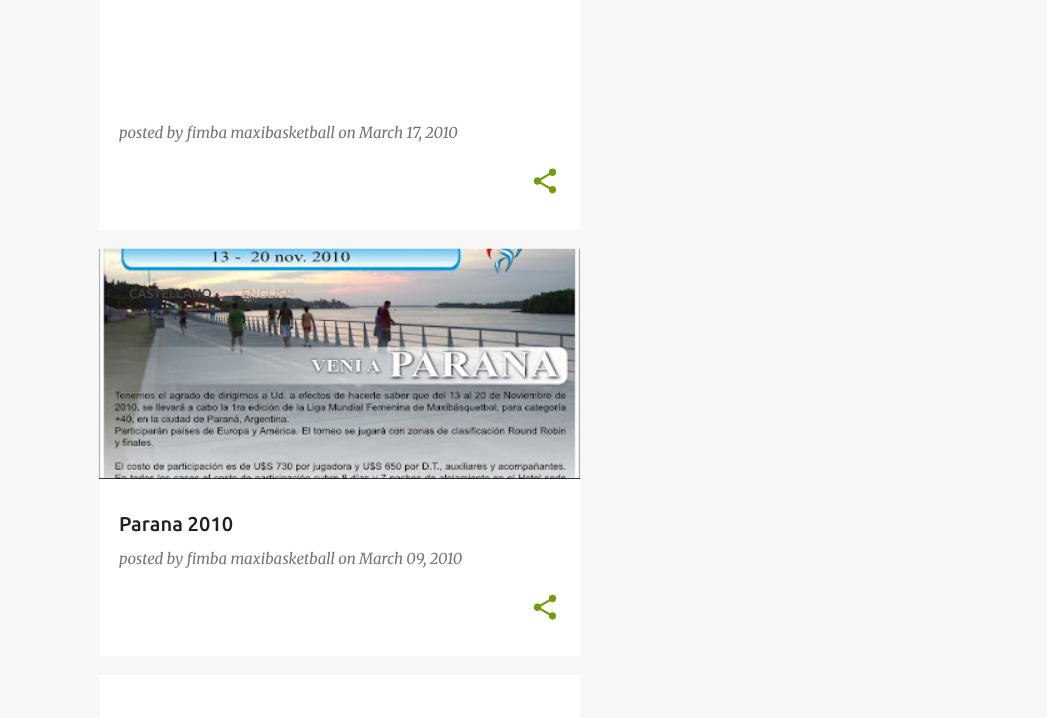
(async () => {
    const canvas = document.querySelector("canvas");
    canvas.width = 1047;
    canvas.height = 718;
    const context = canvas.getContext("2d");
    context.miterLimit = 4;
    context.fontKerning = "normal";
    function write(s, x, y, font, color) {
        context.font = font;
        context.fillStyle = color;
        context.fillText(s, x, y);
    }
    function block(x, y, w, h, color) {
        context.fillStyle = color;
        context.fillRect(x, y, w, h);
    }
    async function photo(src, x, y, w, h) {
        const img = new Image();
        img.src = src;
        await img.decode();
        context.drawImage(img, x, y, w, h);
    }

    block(0, 0, 1047, 718, "rgb(247, 247, 247)");
    block(99, 0, 481, 230, "rgb(255, 255, 255)");
    write("posted by fimba maxibasketball on March 17, 2010", 119, 138, "italic 15px Merriweather", "rgb(117, 117, 117)");
    await photo("media/1.png", 533, 168, 24, 26);
    block(99, 479, 481, 177, "rgb(255, 255, 255)");
    block(99, 478, 481, 1, "rgb(0, 0, 0)");
    await photo("media/2.png", 98, 248, 482, 231);
    write("CASTELLANO", 129, 298, "500 13px Ubuntu", "rgb(67, 64, 62)");
    write("ENGLISH", 241, 298, "500 13px Ubuntu", "rgb(194, 179, 168)");
    write("posted by fimba maxibasketball on March 09, 2010", 119, 564, "italic 15px Merriweather", "rgb(117, 117, 117)");
    write("Parana 2010", 119, 531, "500 20px Ubuntu", "rgb(33, 33, 33)");
    await photo("media/3.png", 533, 594, 24, 26);
    block(99, 675, 481, 43, "rgb(255, 255, 255)");
})();
